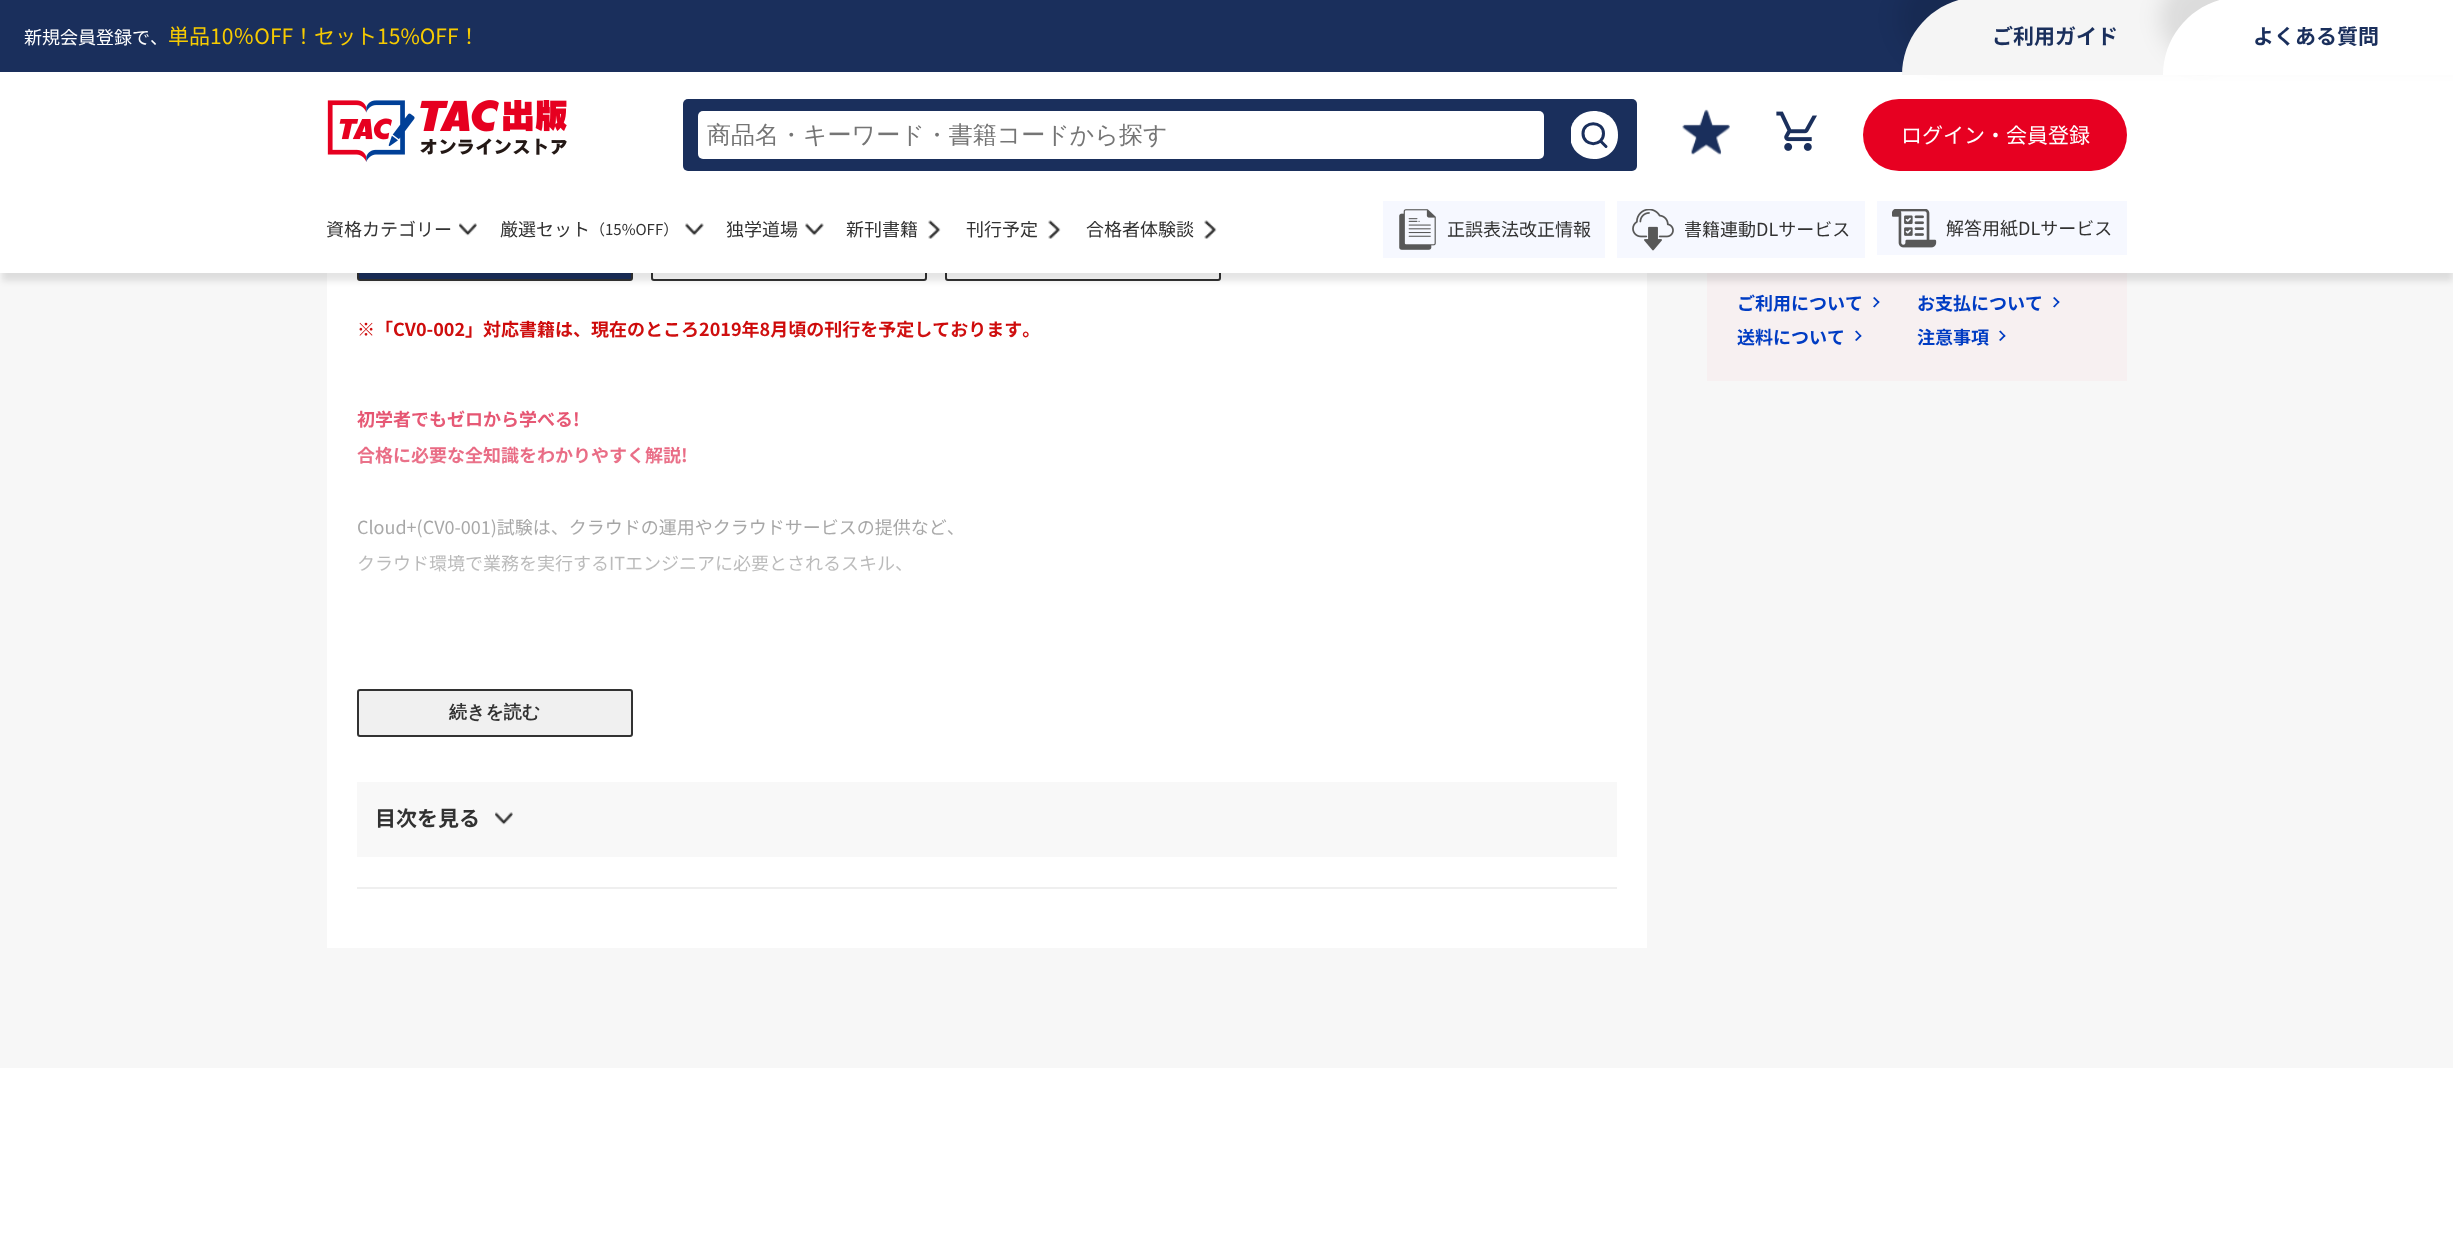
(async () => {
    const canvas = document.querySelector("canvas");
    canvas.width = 2453;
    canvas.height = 1258;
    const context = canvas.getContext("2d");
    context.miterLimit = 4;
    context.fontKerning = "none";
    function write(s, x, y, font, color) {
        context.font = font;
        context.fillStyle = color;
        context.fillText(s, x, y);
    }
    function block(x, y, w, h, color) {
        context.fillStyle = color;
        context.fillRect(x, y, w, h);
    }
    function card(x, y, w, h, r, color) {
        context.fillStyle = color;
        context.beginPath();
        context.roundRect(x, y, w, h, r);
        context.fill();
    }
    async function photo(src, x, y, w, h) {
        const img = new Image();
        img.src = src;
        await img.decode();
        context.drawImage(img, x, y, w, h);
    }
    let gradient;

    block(0, 0, 2453, 1258, "rgb(247, 247, 247)");
    block(327, 273, 1320, 675, "rgb(255, 255, 255)");
    context.fillStyle = "rgb(26, 47, 92)";
    context.beginPath();
    context.roundRect(358, 234, 274, 46, 2);
    context.fill();
    context.strokeStyle = "rgb(50, 50, 50)";
    context.lineWidth = 2;
    context.stroke();
    context.beginPath();
    context.roundRect(652, 234, 274, 46, 2);
    context.stroke();
    context.beginPath();
    context.roundRect(946, 234, 274, 46, 2);
    context.stroke();
    block(1707, 273, 420, 108, "rgb(247, 240, 241)");
    context.fillStyle = "rgba(0, 0, 0, 0.1)";
    context.filter = "blur(3px)";
    context.beginPath();
    context.rect(2, 11, 2451, 270);
    context.fill();
    context.filter = "none";
    block(0, 72, 2453, 201, "rgb(255, 255, 255)");
    block(0, 0, 1959, 72, "rgb(26, 47, 92)");
    write("新規会員登録で、", 24, 44, "18px Noto Sans JP", "rgb(255, 255, 255)");
    write("単品10％OFF！セット15%OFF！", 168, 44, "21px Noto Sans JP", "rgb(247, 203, 1)");
    context.fillStyle = "rgba(0, 0, 0, 0.1)";
    context.filter = "blur(11px)";
    context.beginPath();
    context.roundRect(1899, -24, 342, 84, 81);
    context.fill();
    context.filter = "none";
    context.fillStyle = "rgb(245, 245, 245)";
    context.beginPath();
    context.moveTo(1980, -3);
    context.lineTo(2238, -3);
    context.lineTo(2238, 75);
    context.lineTo(1902, 75);
    context.bezierCurveTo(1902, 32, 1937, -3, 1980, -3);
    context.closePath();
    context.fill();
    write("ご利用ガイド", 1992, 44, "bold 21px Noto Sans JP", "rgb(26, 47, 92)");
    context.fillStyle = "rgba(0, 0, 0, 0.1)";
    context.filter = "blur(11px)";
    context.beginPath();
    context.roundRect(2160, -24, 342, 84, 81);
    context.fill();
    context.filter = "none";
    context.fillStyle = "rgb(255, 255, 255)";
    context.beginPath();
    context.moveTo(2241, -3);
    context.lineTo(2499, -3);
    context.lineTo(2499, 75);
    context.lineTo(2163, 75);
    context.bezierCurveTo(2163, 32, 2198, -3, 2241, -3);
    context.closePath();
    context.fill();
    write("よくある質問", 2253, 44, "bold 21px Noto Sans JP", "rgb(26, 47, 92)");
    await photo("media/1.png", 327, 100, 240, 62);
    card(683, 99, 954, 72, 5, "rgb(26, 47, 92)");
    card(698, 111, 846, 48, 5, "rgb(255, 255, 255)");
    write("商品名・キーワード・書籍コードから探す", 707, 143, "500 24px WenQuanYi Zen Hei", "rgb(117, 117, 117)");
    context.save();
    context.beginPath();
    context.rect(1571, 111, 48, 48);
    context.clip();
    context.fillStyle = "rgb(255, 255, 255)";
    context.beginPath();
    context.moveTo(1570, 135);
    context.bezierCurveTo(1570, 103, 1618, 103, 1618, 135);
    context.bezierCurveTo(1618, 167, 1570, 167, 1570, 135);
    context.closePath();
    context.fill();
    context.restore();
    context.beginPath();
    context.moveTo(1603.5, 133.5);
    context.bezierCurveTo(1603.5, 147, 1583, 147, 1583, 133.5);
    context.bezierCurveTo(1583, 120.5, 1603.5, 120.5, 1603.5, 133.5);
    context.closePath();
    context.moveTo(1606, 146.5);
    context.lineTo(1600.5, 141);
    context.strokeStyle = "rgb(26, 47, 92)";
    context.lineWidth = 3;
    context.lineCap = "round";
    context.lineJoin = "round";
    context.stroke();
    await photo("media/2.png", 1682, 109, 48, 46);
    await photo("media/3.png", 1776, 111, 41, 40);
    card(1863, 99, 264, 72, 36, "rgb(231, 0, 33)");
    write("ログイン・会員登録", 1901, 143, "21px Noto Sans JP", "rgb(255, 255, 255)");
    write("資格カテゴリー", 326, 236, "18px Noto Sans JP", "rgb(50, 50, 50)");
    await photo("media/4.png", 459, 223, 18, 13);
    write("厳選セット", 500, 236, "18px Noto Sans JP", "rgb(50, 50, 50)");
    write("（15%OFF）", 590, 235, "15px Noto Sans JP", "rgb(50, 50, 50)");
    await photo("media/5.png", 685, 223, 19, 13);
    write("独学道場", 726, 236, "18px Noto Sans JP", "rgb(50, 50, 50)");
    await photo("media/5.png", 805, 223, 19, 13);
    write("新刊書籍", 846, 236, "18px Noto Sans JP", "rgb(50, 50, 50)");
    await photo("media/6.png", 928, 220, 13, 19);
    write("刊行予定", 966, 236, "18px Noto Sans JP", "rgb(50, 50, 50)");
    await photo("media/6.png", 1048, 220, 13, 19);
    write("合格者体験談", 1086, 236, "18px Noto Sans JP", "rgb(50, 50, 50)");
    await photo("media/6.png", 1204, 220, 13, 19);
    block(1383, 201, 222, 57, "rgb(246, 248, 255)");
    await photo("media/7.png", 1399, 209, 37, 41);
    write("正誤表法改正情報", 1447, 236, "18px Noto Sans JP", "rgb(50, 50, 50)");
    block(1617, 201, 248, 57, "rgb(246, 248, 255)");
    await photo("media/8.png", 1632, 209, 42, 42);
    write("書籍連動DLサービス", 1684, 236, "18px Noto Sans JP", "rgb(50, 50, 50)");
    block(1877, 201, 250, 54, "rgb(246, 248, 255)");
    await photo("media/9.png", 1892, 209, 45, 39);
    write("解答用紙DLサービス", 1946, 235, "18px Noto Sans JP", "rgb(50, 50, 50)");
    write("※「CV0-002」対応書籍は、現在のところ2019年8月頃の刊行を予定しております。", 357, 336, "bold 18px Noto Sans JP", "rgb(204, 0, 0)");
    write("初学者でもゼロから学べる!", 357, 426, "bold 18px Noto Sans JP", "rgb(220, 20, 60)");
    write("合格に必要な全知識をわかりやすく解説!", 357, 462, "bold 18px Noto Sans JP", "rgb(220, 20, 60)");
    write("Cloud+(CV0-001)試験は、クラウドの運用やクラウドサービスの提供など、", 357, 534, "18px Noto Sans JP", "rgb(50, 50, 50)");
    write("クラウド環境で業務を実行するITエンジニアに必要とされるスキル、", 357, 570, "18px Noto Sans JP", "rgb(50, 50, 50)");
    gradient = context.createLinearGradient(987, 310, 987, 689);
    gradient.addColorStop(0, "rgba(255, 255, 255, 0)");
    gradient.addColorStop(1, "rgb(255, 255, 255)");
    context.fillStyle = gradient;
    context.fillRect(357, 321, 672, 251);
    context.fillStyle = "rgb(240, 240, 240)";
    context.beginPath();
    context.roundRect(358, 690, 274, 46, 2);
    context.fill();
    context.strokeStyle = "rgb(50, 50, 50)";
    context.lineWidth = 2;
    context.lineJoin = "miter";
    context.stroke();
    write("続きを読む", 449, 718, "bold 18px WenQuanYi Zen Hei", "rgb(50, 50, 50)");
    block(357, 887, 1260, 2, "rgb(239, 239, 239)");
    block(357, 782, 1260, 75, "rgb(248, 248, 248)");
    write("目次を見る", 375, 826, "bold 21px Noto Sans JP", "rgb(50, 50, 50)");
    await photo("media/10.png", 495, 812, 18, 13);
    write("ご利用について", 1737, 310, "bold 18px Noto Sans JP", "rgb(0, 60, 195)");
    context.beginPath();
    context.moveTo(1874.5, 297);
    context.lineTo(1879.5, 302);
    context.lineTo(1878.5, 303.5);
    context.lineTo(1873, 298);
    context.closePath();
    context.fill();
    context.beginPath();
    context.moveTo(1878.5, 301);
    context.lineTo(1879.5, 302);
    context.lineTo(1874.5, 307.5);
    context.lineTo(1873, 306.5);
    context.closePath();
    context.fill();
    write("お支払について", 1917, 310, "bold 18px Noto Sans JP", "rgb(0, 60, 195)");
    context.beginPath();
    context.moveTo(2054.5, 297);
    context.lineTo(2059.5, 302);
    context.lineTo(2058.5, 303.5);
    context.lineTo(2053, 298);
    context.closePath();
    context.fill();
    context.beginPath();
    context.moveTo(2058.5, 301);
    context.lineTo(2059.5, 302);
    context.lineTo(2054.5, 307.5);
    context.lineTo(2053, 306.5);
    context.closePath();
    context.fill();
    write("送料について", 1737, 344, "bold 18px Noto Sans JP", "rgb(0, 60, 195)");
    context.beginPath();
    context.moveTo(1856.5, 330.5);
    context.lineTo(1861.5, 336);
    context.lineTo(1860.5, 337);
    context.lineTo(1855, 331.5);
    context.closePath();
    context.fill();
    context.beginPath();
    context.moveTo(1860.5, 334.5);
    context.lineTo(1861.5, 336);
    context.lineTo(1856.5, 341);
    context.lineTo(1855, 340);
    context.closePath();
    context.fill();
    write("注意事項", 1917, 344, "bold 18px Noto Sans JP", "rgb(0, 60, 195)");
    context.beginPath();
    context.moveTo(2000.5, 330.5);
    context.lineTo(2005.5, 336);
    context.lineTo(2004.5, 337);
    context.lineTo(1999, 331.5);
    context.closePath();
    context.fill();
    context.beginPath();
    context.moveTo(2004.5, 334.5);
    context.lineTo(2005.5, 336);
    context.lineTo(2000.5, 341);
    context.lineTo(1999, 340);
    context.closePath();
    context.fill();
    block(0, 1068, 2453, 190, "rgb(255, 255, 255)");
})();
